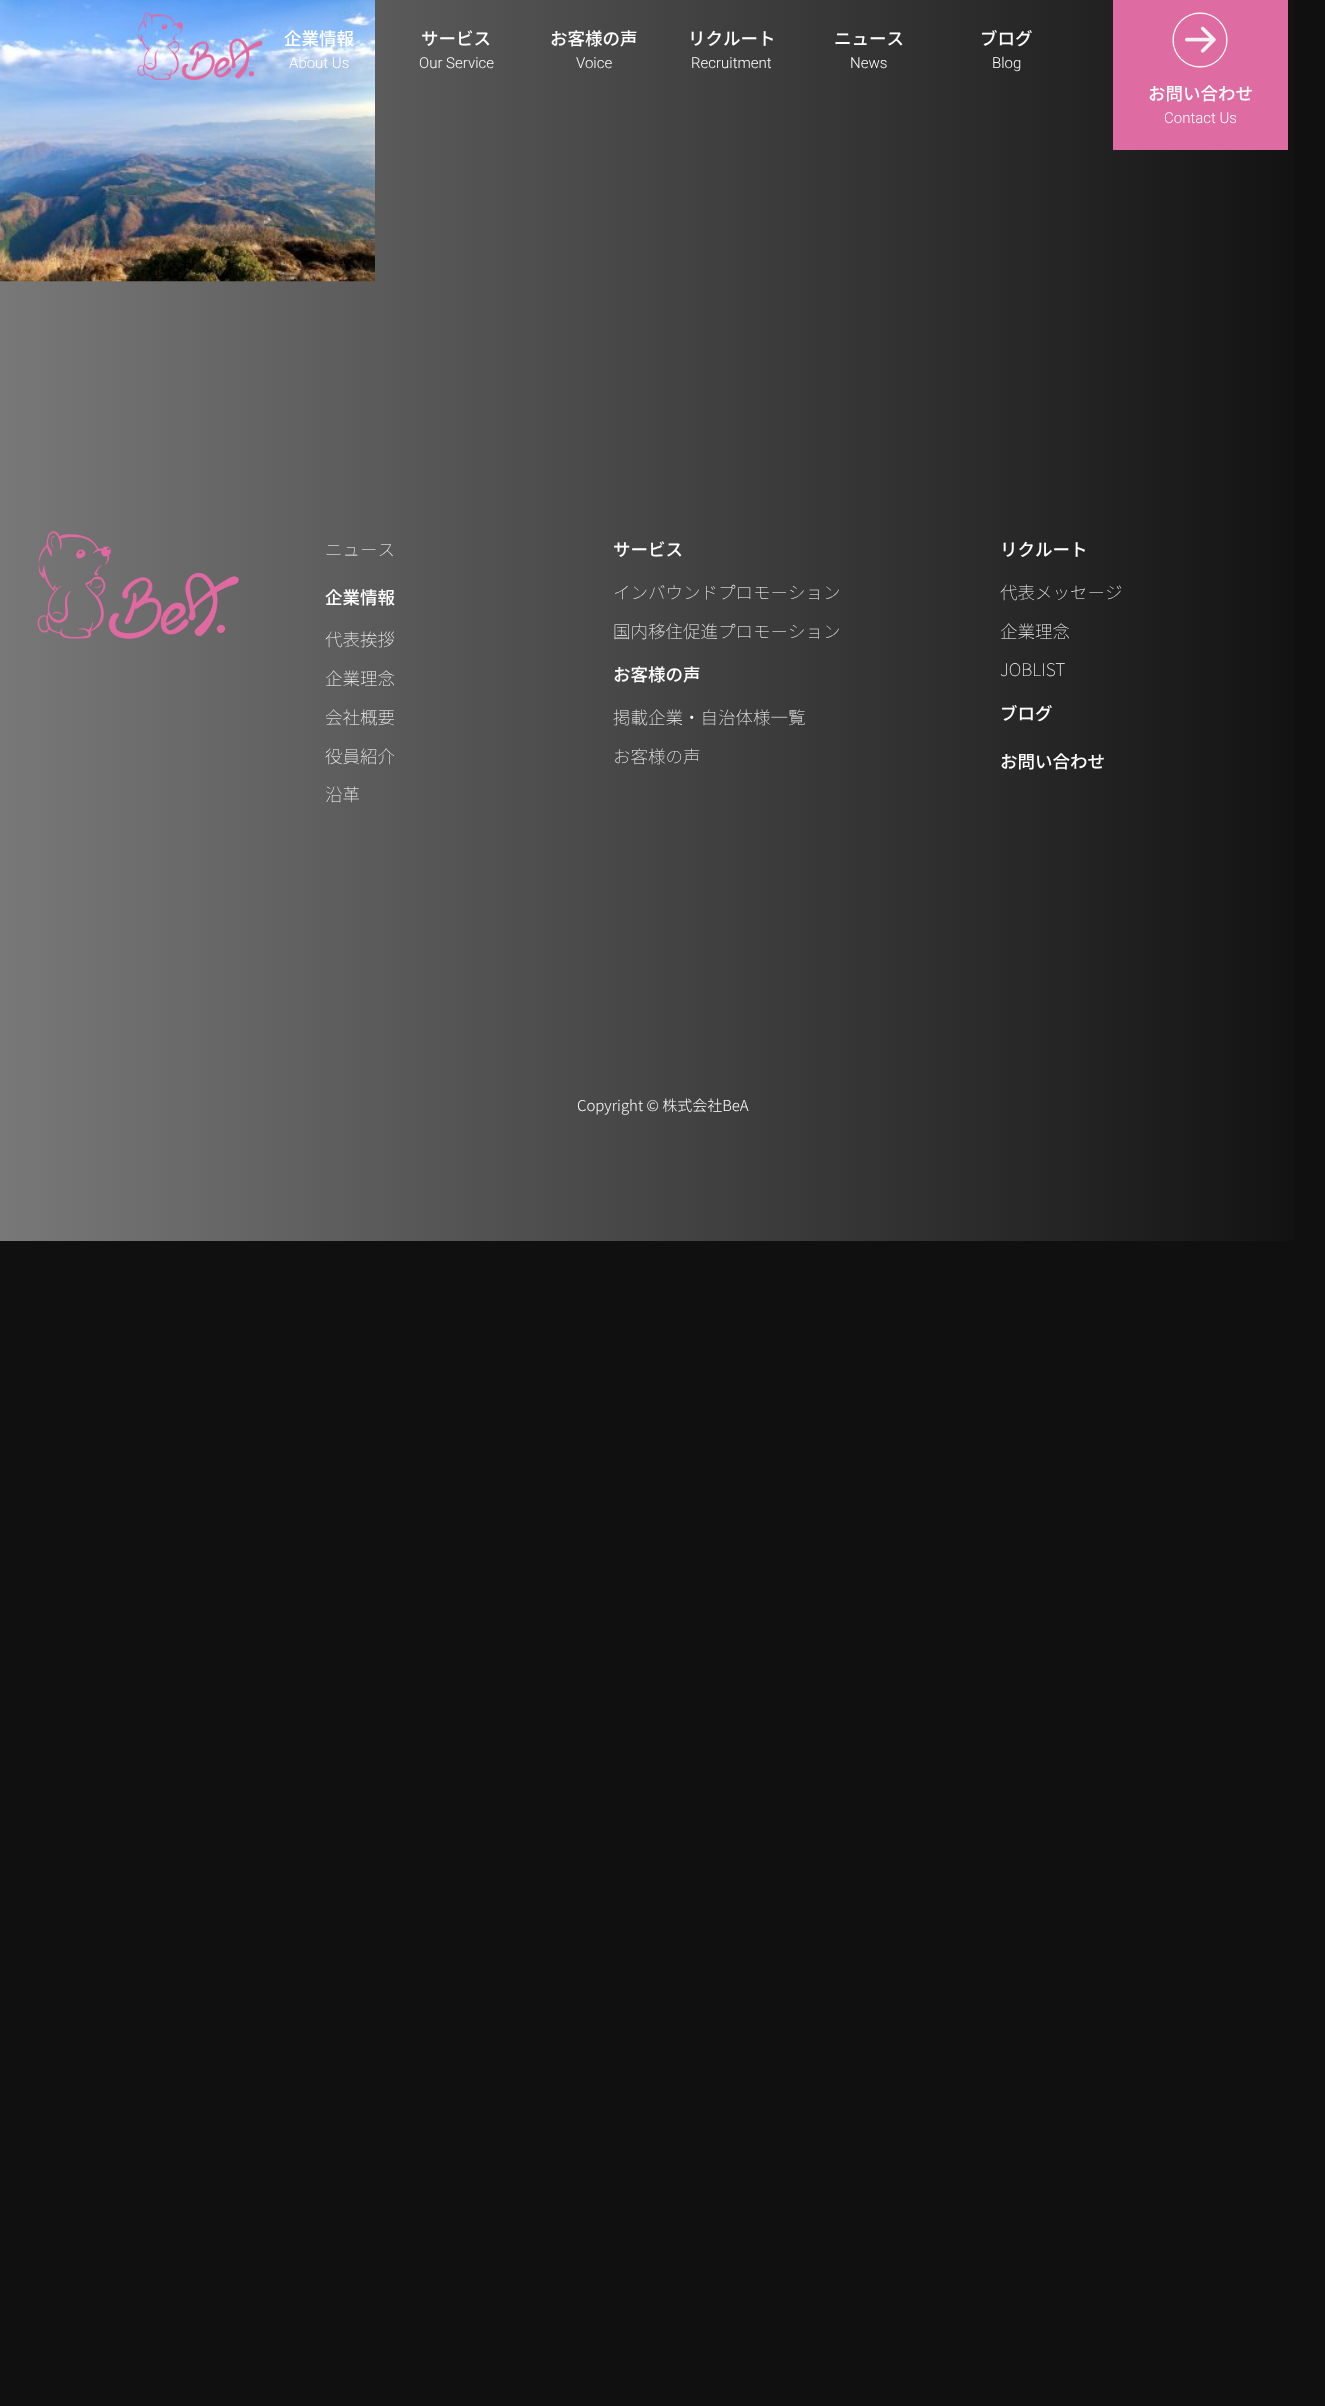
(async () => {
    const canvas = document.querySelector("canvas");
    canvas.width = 1325;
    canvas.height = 2406;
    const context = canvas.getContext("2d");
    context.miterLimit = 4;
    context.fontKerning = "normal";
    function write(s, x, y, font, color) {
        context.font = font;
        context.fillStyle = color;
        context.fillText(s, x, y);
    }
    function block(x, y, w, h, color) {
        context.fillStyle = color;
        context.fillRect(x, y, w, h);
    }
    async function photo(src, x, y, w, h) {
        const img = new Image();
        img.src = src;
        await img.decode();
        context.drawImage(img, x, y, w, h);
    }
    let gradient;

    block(0, 0, 1325, 2406, "rgb(16, 16, 16)");
    gradient = context.createLinearGradient(0, 203, 1325, 203);
    gradient.addColorStop(0, "rgb(120, 120, 120)");
    gradient.addColorStop(1, "rgb(16, 16, 16)");
    context.fillStyle = gradient;
    context.fillRect(0, 0, 1293, 406);
    await photo("media/1.png", 0, 0, 375, 282);
    await photo("media/2.png", 137, 12, 126, 68);
    write("企業情報", 284, 45, "500 17.5px Noto Sans JP", "rgb(255, 255, 255)");
    write("About Us", 289, 68, "300 15px Roboto", "rgb(255, 255, 255)");
    write("サービス", 421, 45, "500 17.5px Noto Sans JP", "rgb(255, 255, 255)");
    write("Our Service", 419, 68, "300 15px Roboto", "rgb(255, 255, 255)");
    write("お客様の声", 550, 45, "500 17.5px Noto Sans JP", "rgb(255, 255, 255)");
    write("Voice", 576, 68, "300 15px Roboto", "rgb(255, 255, 255)");
    write("リクルート", 688, 45, "500 17.5px Noto Sans JP", "rgb(255, 255, 255)");
    write("Recruitment", 691, 68, "300 15px Roboto", "rgb(255, 255, 255)");
    write("ニュース", 834, 45, "500 17.5px Noto Sans JP", "rgb(255, 255, 255)");
    write("News", 850, 68, "300 15px Roboto", "rgb(255, 255, 255)");
    write("ブログ", 980, 45, "500 17.5px Noto Sans JP", "rgb(255, 255, 255)");
    write("Blog", 992, 68, "300 15px Roboto", "rgb(255, 255, 255)");
    block(1113, 0, 175, 150, "rgb(222, 107, 161)");
    await photo("media/3.png", 1172, 12, 56, 56);
    write("お問い合わせ", 1148, 100, "500 17.5px Noto Sans JP", "rgb(255, 255, 255)");
    write("Contact Us", 1164, 123, "300 15px Roboto", "rgb(255, 255, 255)");
    gradient = context.createLinearGradient(0, 824, 1325, 824);
    gradient.addColorStop(0, "rgb(120, 120, 120)");
    gradient.addColorStop(1, "rgb(16, 16, 16)");
    context.fillStyle = gradient;
    context.fillRect(0, 406, 1293, 835);
    await photo("media/4.png", 37, 531, 202, 108);
    write("ニュース", 325, 556, "100 17.5px Noto Sans JP", "rgb(255, 255, 255)");
    write("企業情報", 325, 604, "500 17.5px Noto Sans JP", "rgb(255, 255, 255)");
    write("代表挨拶", 325, 646, "100 17.5px Noto Sans JP", "rgb(255, 255, 255)");
    write("企業理念", 325, 685, "100 17.5px Noto Sans JP", "rgb(255, 255, 255)");
    write("会社概要", 325, 724, "100 17.5px Noto Sans JP", "rgb(255, 255, 255)");
    write("役員紹介", 325, 763, "100 17.5px Noto Sans JP", "rgb(255, 255, 255)");
    write("沿革", 325, 801, "100 17.5px Noto Sans JP", "rgb(255, 255, 255)");
    write("サービス", 613, 556, "500 17.5px Noto Sans JP", "rgb(255, 255, 255)");
    write("インバウンドプロモーション", 613, 599, "100 17.5px Noto Sans JP", "rgb(255, 255, 255)");
    write("国内移住促進プロモーション", 613, 638, "100 17.5px Noto Sans JP", "rgb(255, 255, 255)");
    write("お客様の声", 613, 681, "500 17.5px Noto Sans JP", "rgb(255, 255, 255)");
    write("掲載企業・自治体様一覧", 613, 724, "100 17.5px Noto Sans JP", "rgb(255, 255, 255)");
    write("お客様の声", 613, 763, "100 17.5px Noto Sans JP", "rgb(255, 255, 255)");
    write("リクルート", 1000, 556, "500 17.5px Noto Sans JP", "rgb(255, 255, 255)");
    write("代表メッセージ", 1000, 599, "100 17.5px Noto Sans JP", "rgb(255, 255, 255)");
    write("企業理念", 1000, 638, "100 17.5px Noto Sans JP", "rgb(255, 255, 255)");
    write("JOBLIST", 1000, 676, "100 17.5px Noto Sans JP", "rgb(255, 255, 255)");
    write("ブログ", 1000, 720, "500 17.5px Noto Sans JP", "rgb(255, 255, 255)");
    write("お問い合わせ", 1000, 768, "500 17.5px Noto Sans JP", "rgb(255, 255, 255)");
    write("Copyright © 株式会社BeA", 577, 1111, "300 15px Noto Sans JP", "rgb(255, 255, 255)");
})();
